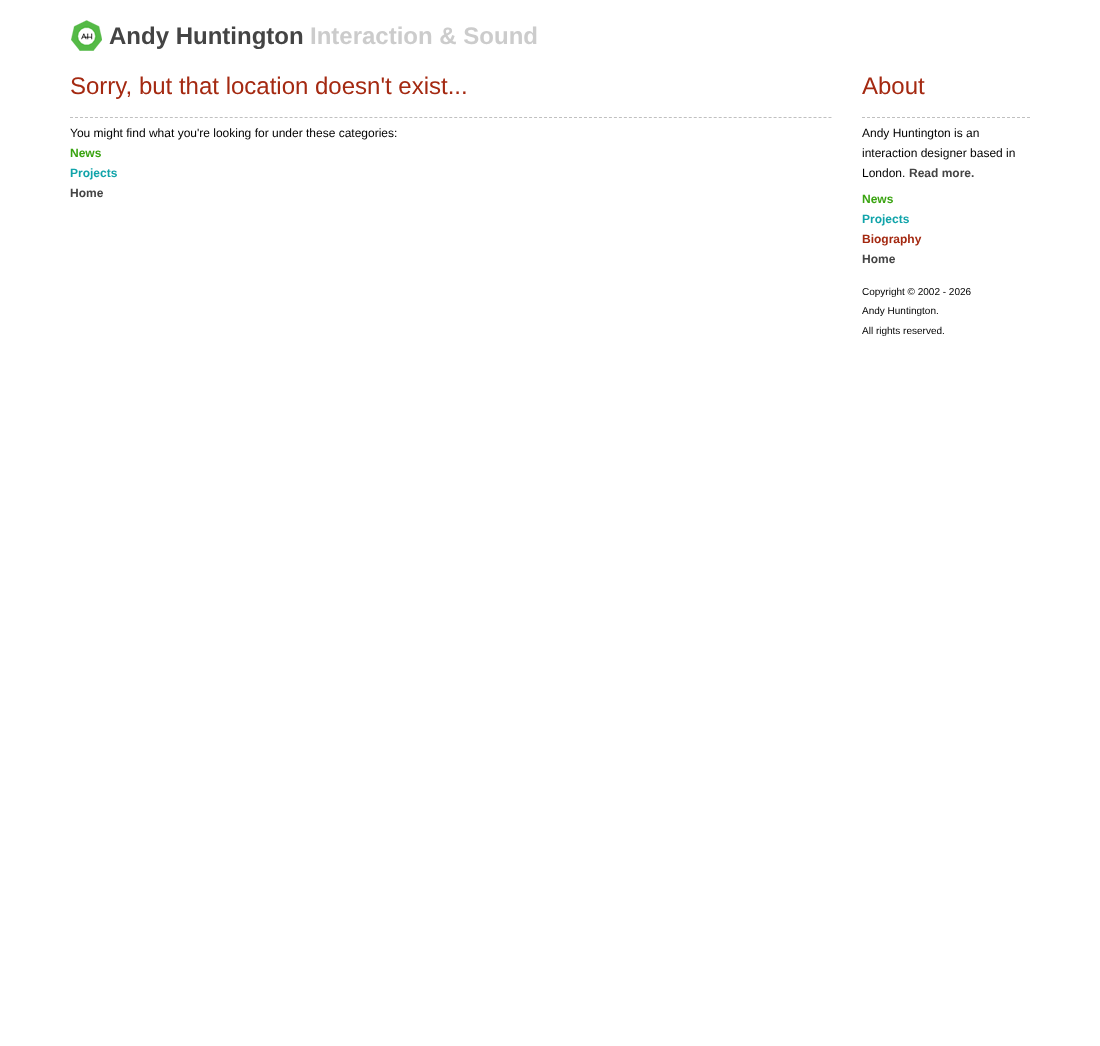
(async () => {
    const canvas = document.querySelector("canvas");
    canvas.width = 1100;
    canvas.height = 1046;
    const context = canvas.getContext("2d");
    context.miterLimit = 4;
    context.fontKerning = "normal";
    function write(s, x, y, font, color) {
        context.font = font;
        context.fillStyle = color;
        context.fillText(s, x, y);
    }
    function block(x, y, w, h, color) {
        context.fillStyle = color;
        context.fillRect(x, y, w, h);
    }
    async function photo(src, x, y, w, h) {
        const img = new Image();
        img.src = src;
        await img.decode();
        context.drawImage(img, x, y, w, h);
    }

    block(0, 0, 1100, 1046, "rgb(255, 255, 255)");
    await photo("media/1.png", 71, 20, 31, 31);
    write("Andy Huntington", 109, 44, "bold 24px Liberation Sans", "rgb(68, 68, 68)");
    write("Interaction & Sound", 310, 44, "bold 24px Liberation Sans", "rgb(204, 204, 204)");
    write("Sorry, but that location doesn't exist...", 70, 94, "24px Liberation Sans", "rgb(164, 41, 17)");
    context.beginPath();
    context.moveTo(70, 117.5);
    context.lineTo(832, 117.5);
    context.strokeStyle = "rgb(192, 192, 192)";
    context.setLineDash([3, 1.99]);
    context.stroke();
    write("You might find what you're looking for under these categories:", 70, 137, "12px Liberation Sans", "rgb(0, 0, 0)");
    write("News", 70, 157, "bold 12px Liberation Sans", "rgb(58, 164, 17)");
    write("Projects", 70, 177, "bold 12px Liberation Sans", "rgb(17, 164, 170)");
    write("Home", 70, 197, "bold 12px Liberation Sans", "rgb(68, 68, 68)");
    write("About", 862, 94, "24px Liberation Sans", "rgb(164, 41, 17)");
    context.beginPath();
    context.moveTo(862, 117.5);
    context.lineTo(1030, 117.5);
    context.setLineDash([3, 2]);
    context.stroke();
    write("Andy Huntington is an", 862, 137, "12px Liberation Sans", "rgb(0, 0, 0)");
    write("interaction designer based in", 862, 157, "12px Liberation Sans", "rgb(0, 0, 0)");
    write("London.", 862, 177, "12px Liberation Sans", "rgb(0, 0, 0)");
    write("Read more.", 909, 177, "bold 12px Liberation Sans", "rgb(68, 68, 68)");
    write("News", 862, 203, "bold 12px Liberation Sans", "rgb(58, 164, 17)");
    write("Projects", 862, 223, "bold 12px Liberation Sans", "rgb(17, 164, 170)");
    write("Biography", 862, 243, "bold 12px Liberation Sans", "rgb(164, 41, 17)");
    write("Home", 862, 263, "bold 12px Liberation Sans", "rgb(68, 68, 68)");
    write("Copyright © 2002 - 2026", 862, 295, "10px Liberation Sans", "rgb(0, 0, 0)");
    write("Andy Huntington.", 862, 314, "10px Liberation Sans", "rgb(0, 0, 0)");
    write("All rights reserved.", 862, 334, "10px Liberation Sans", "rgb(0, 0, 0)");
})();
